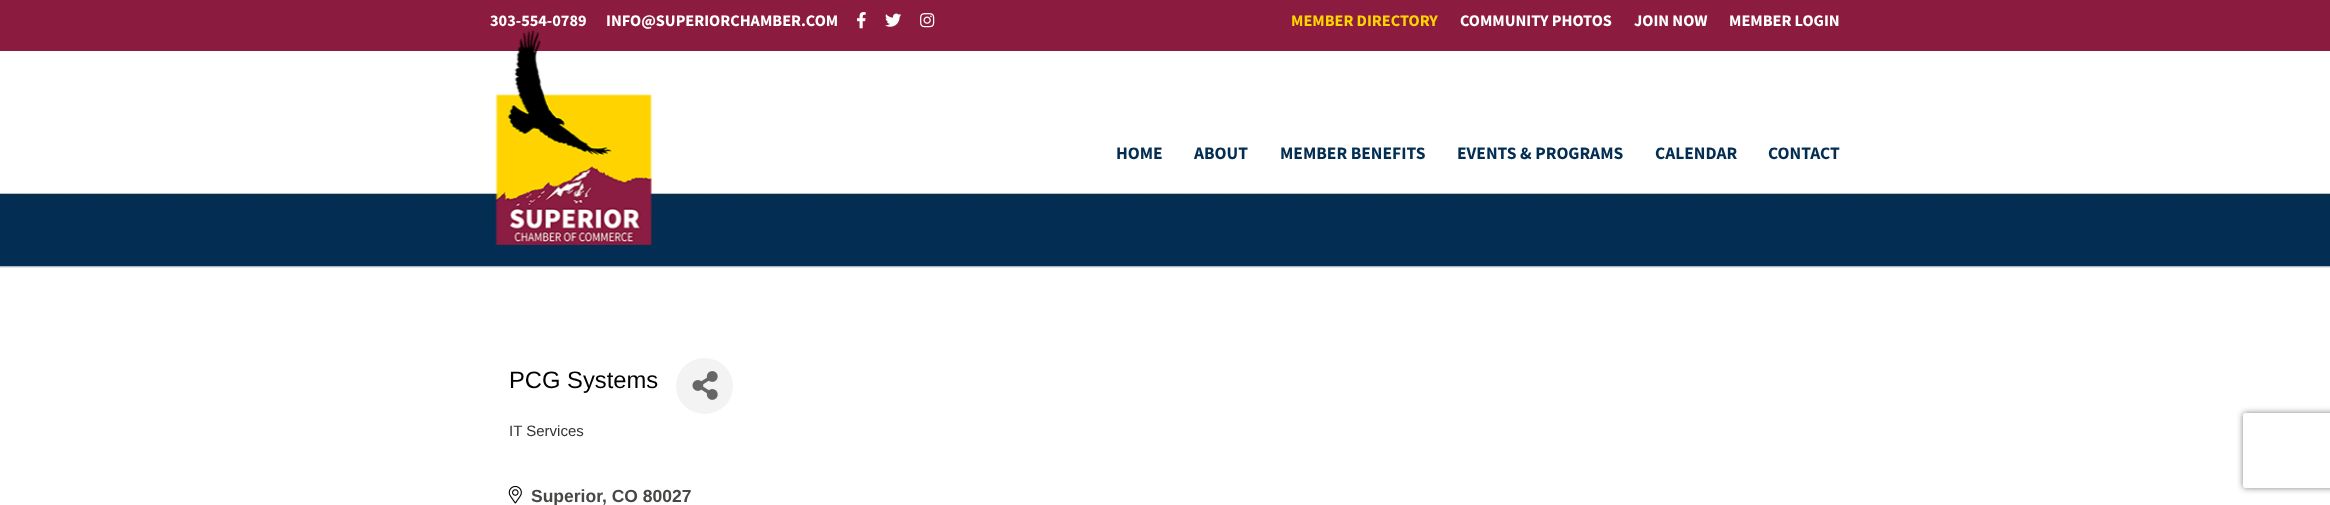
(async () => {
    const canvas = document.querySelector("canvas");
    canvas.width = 2330;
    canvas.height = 505;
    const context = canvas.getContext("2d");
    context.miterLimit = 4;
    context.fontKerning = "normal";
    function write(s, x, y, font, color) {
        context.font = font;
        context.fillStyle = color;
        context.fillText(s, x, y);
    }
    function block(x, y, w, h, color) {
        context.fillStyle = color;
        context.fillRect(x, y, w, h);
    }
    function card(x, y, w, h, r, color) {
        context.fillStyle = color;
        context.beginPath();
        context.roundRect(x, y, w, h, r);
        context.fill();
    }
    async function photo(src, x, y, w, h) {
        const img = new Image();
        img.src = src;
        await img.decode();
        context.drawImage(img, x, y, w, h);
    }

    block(0, 0, 2330, 505, "rgb(255, 255, 255)");
    block(0, 0, 2330, 51, "rgb(139, 27, 63)");
    write("303-554-0789", 490, 26, "bold 16.25px Source Sans Pro", "rgb(255, 255, 255)");
    write("INFO@SUPERIORCHAMBER.COM", 606, 26, "bold 16.25px Source Sans Pro", "rgb(255, 255, 255)");
    await photo("media/1.png", 857, 12, 9, 17);
    await photo("media/2.png", 885, 13, 17, 14);
    await photo("media/3.png", 920, 13, 15, 15);
    write("MEMBER DIRECTORY", 1291, 26, "bold 16.25px Source Sans Pro", "rgb(255, 213, 0)");
    write("COMMUNITY PHOTOS", 1460, 26, "bold 16.25px Source Sans Pro", "rgb(255, 255, 255)");
    write("JOIN NOW", 1634, 26, "bold 16.25px Source Sans Pro", "rgb(255, 255, 255)");
    write("MEMBER LOGIN", 1729, 26, "bold 16.25px Source Sans Pro", "rgb(255, 255, 255)");
    block(0, 266, 2330, 2, "rgb(230, 230, 230)");
    await photo("media/4.png", 0, 192, 2330, 75);
    await photo("media/5.png", 495, 30, 158, 215);
    write("HOME", 1116, 159, "bold 17.5px Source Sans Pro", "rgb(3, 46, 82)");
    write("ABOUT", 1194, 159, "bold 17.5px Source Sans Pro", "rgb(3, 46, 82)");
    write("MEMBER BENEFITS", 1280, 159, "bold 17.5px Source Sans Pro", "rgb(3, 46, 82)");
    write("EVENTS & PROGRAMS", 1457, 159, "bold 17.5px Source Sans Pro", "rgb(3, 46, 82)");
    write("CALENDAR", 1655, 159, "bold 17.5px Source Sans Pro", "rgb(3, 46, 82)");
    write("CONTACT", 1768, 159, "bold 17.5px Source Sans Pro", "rgb(3, 46, 82)");
    write("PCG Systems", 509, 388, "23.75px Liberation Sans", "rgb(0, 0, 0)");
    card(676, 358, 57, 56, 28, "rgb(243, 243, 243)");
    await photo("media/6.png", 692, 371, 26, 29);
    write("IT Services", 509, 436, "15px Liberation Sans", "rgb(51, 51, 51)");
    await photo("media/7.png", 508, 485, 14, 19);
    write("Superior", 531, 502, "bold 17.5px Liberation Sans", "rgb(70, 72, 67)");
    write(", CO 80027", 602, 502, "bold 17.5px Liberation Sans", "rgb(70, 72, 67)");
    context.save();
    context.beginPath();
    context.moveTo(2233, 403);
    context.lineTo(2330, 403);
    context.lineTo(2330, 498);
    context.lineTo(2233, 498);
    context.closePath();
    context.moveTo(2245.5, 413);
    context.lineTo(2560.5, 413);
    context.bezierCurveTo(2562, 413, 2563, 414, 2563, 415.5);
    context.lineTo(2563, 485.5);
    context.bezierCurveTo(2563, 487, 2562, 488, 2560.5, 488);
    context.lineTo(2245.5, 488);
    context.bezierCurveTo(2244, 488, 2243, 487, 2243, 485.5);
    context.lineTo(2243, 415.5);
    context.bezierCurveTo(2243, 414, 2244, 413, 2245.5, 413);
    context.closePath();
    context.clip("evenodd");
    context.fillStyle = "rgb(128, 128, 128)";
    context.filter = "blur(3px)";
    context.beginPath();
    context.roundRect(2243, 413, 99, 75, 2.5);
    context.fill();
    context.filter = "none";
    context.restore();
})();
